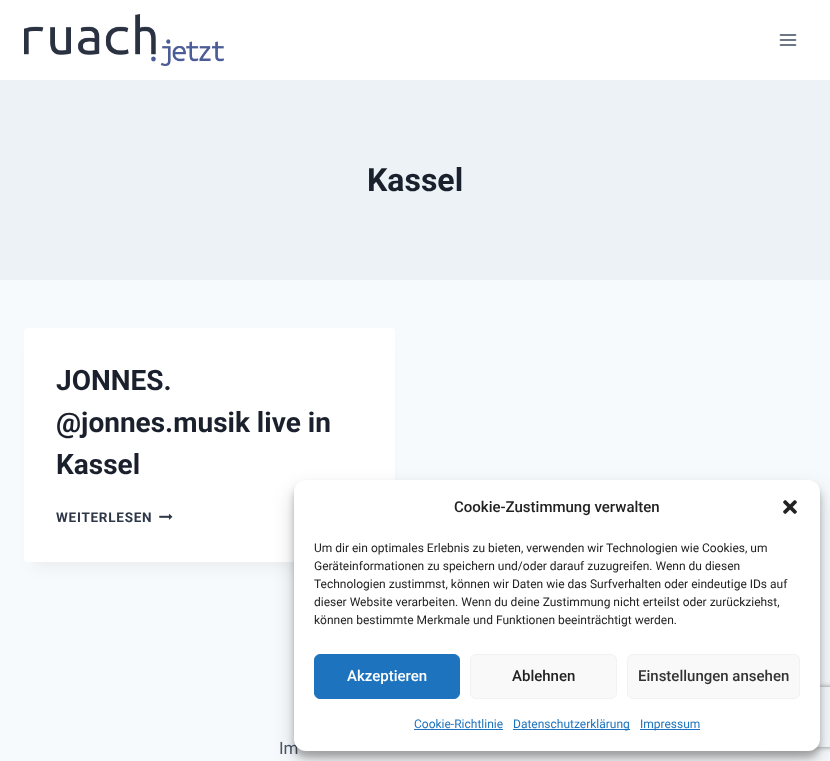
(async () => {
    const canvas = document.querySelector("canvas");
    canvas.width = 830;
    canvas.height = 761;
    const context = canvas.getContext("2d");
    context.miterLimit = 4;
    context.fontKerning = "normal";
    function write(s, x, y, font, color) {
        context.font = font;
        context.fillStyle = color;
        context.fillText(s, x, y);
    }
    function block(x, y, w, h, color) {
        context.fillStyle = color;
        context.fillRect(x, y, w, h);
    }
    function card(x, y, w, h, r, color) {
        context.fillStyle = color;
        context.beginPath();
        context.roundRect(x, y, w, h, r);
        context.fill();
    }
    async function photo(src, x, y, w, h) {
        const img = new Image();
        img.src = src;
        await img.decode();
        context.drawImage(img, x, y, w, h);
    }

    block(0, 0, 830, 761, "rgb(247, 250, 252)");
    block(0, 0, 830, 80, "rgb(255, 255, 255)");
    await photo("media/1.png", 24, 14, 200, 52);
    await photo("media/2.png", 779, 34, 18, 12);
    block(0, 80, 830, 200, "rgb(237, 242, 247)");
    write("Kassel", 367, 191, "bold 32px Roboto", "rgb(26, 32, 44)");
    context.fillStyle = "rgba(0, 0, 0, 0.05)";
    context.filter = "blur(7.5px)";
    context.beginPath();
    context.rect(34, 353, 351, 214);
    context.fill();
    context.filter = "none";
    card(24, 328, 371, 234, 4, "rgb(255, 255, 255)");
    write("JONNES.", 56, 390, "bold 28px Roboto", "rgb(26, 32, 44)");
    write("@jonnes.musik live in", 56, 432, "bold 28px Roboto", "rgb(26, 32, 44)");
    write("Kassel", 56, 474, "bold 28px Roboto", "rgb(26, 32, 44)");
    context.letterSpacing = "0.75px";
    write("WEITERLESEN", 56, 522, "bold 13.5px Roboto", "rgb(45, 55, 72)");
    await photo("media/3.png", 159, 513, 14, 7);
    context.letterSpacing = "0px";
    write("Im", 279, 754, "17px Roboto", "rgb(74, 85, 104)");
    context.fillStyle = "rgba(0, 0, 0, 0.23)";
    context.filter = "blur(3px)";
    context.beginPath();
    context.roundRect(294, 486, 526, 271, 12);
    context.fill();
    context.filter = "none";
    context.fillStyle = "rgba(0, 0, 0, 0.19)";
    context.filter = "blur(10px)";
    context.beginPath();
    context.roundRect(294, 490, 526, 271, 12);
    context.fill();
    context.filter = "none";
    context.save();
    context.beginPath();
    context.moveTo(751, 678);
    context.lineTo(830, 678);
    context.lineTo(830, 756);
    context.lineTo(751, 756);
    context.closePath();
    context.moveTo(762, 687);
    context.lineTo(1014, 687);
    context.bezierCurveTo(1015, 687, 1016, 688, 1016, 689);
    context.lineTo(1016, 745);
    context.bezierCurveTo(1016, 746, 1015, 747, 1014, 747);
    context.lineTo(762, 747);
    context.bezierCurveTo(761, 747, 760, 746, 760, 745);
    context.lineTo(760, 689);
    context.bezierCurveTo(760, 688, 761, 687, 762, 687);
    context.closePath();
    context.clip("evenodd");
    context.fillStyle = "rgb(128, 128, 128)";
    context.filter = "blur(2.5px)";
    context.beginPath();
    context.roundRect(760, 687, 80, 60, 2);
    context.fill();
    context.filter = "none";
    context.restore();
    card(294, 480, 526, 271, 12, "rgb(255, 255, 255)");
    write("Cookie-Zustimmung verwalten", 454, 512, "500 15px Roboto", "rgb(34, 34, 34)");
    await photo("media/4.png", 783, 500, 14, 14);
    write("Um dir ein optimales Erlebnis zu bieten, verwenden wir Technologien wie Cookies, um", 314, 552, "12px Roboto", "rgb(34, 34, 34)");
    write("Geräteinformationen zu speichern und/oder darauf zuzugreifen. Wenn du diesen", 314, 570, "12px Roboto", "rgb(34, 34, 34)");
    write("Technologien zustimmst, können wir Daten wie das Surfverhalten oder eindeutige IDs auf", 314, 588, "12px Roboto", "rgb(34, 34, 34)");
    write("dieser Website verarbeiten. Wenn du deine Zustimmung nicht erteilst oder zurückziehst,", 314, 606, "12px Roboto", "rgb(34, 34, 34)");
    write("können bestimmte Merkmale und Funktionen beeinträchtigt werden.", 314, 624, "12px Roboto", "rgb(34, 34, 34)");
    context.fillStyle = "rgb(30, 115, 190)";
    context.beginPath();
    context.roundRect(314.5, 654.5, 145, 44, 5.5);
    context.fill();
    context.strokeStyle = "rgb(30, 115, 190)";
    context.stroke();
    write("Akzeptieren", 347, 681, "500 15px Roboto", "rgb(255, 255, 255)");
    context.fillStyle = "rgb(249, 249, 249)";
    context.beginPath();
    context.roundRect(470.5, 654.5, 146, 44, 5.5);
    context.fill();
    context.strokeStyle = "rgb(242, 242, 242)";
    context.stroke();
    write("Ablehnen", 512, 681, "500 15px Roboto", "rgb(34, 34, 34)");
    context.fillStyle = "rgb(249, 249, 249)";
    context.beginPath();
    context.roundRect(627.5, 654.5, 172, 44, 5.5);
    context.fill();
    context.stroke();
    write("Einstellungen ansehen", 638, 681, "500 15px Roboto", "rgb(51, 51, 51)");
    write("Cookie-Richtlinie", 414, 728, "12px Roboto", "rgb(30, 115, 190)");
    block(414, 729, 89, 1, "rgb(30, 115, 190)");
    block(513, 729, 117, 1, "rgb(30, 115, 190)");
    write("Datenschutzerklärung", 513, 728, "12px Roboto", "rgb(30, 115, 190)");
    block(640, 729, 60, 1, "rgb(30, 115, 190)");
    write("Impressum", 640, 728, "12px Roboto", "rgb(30, 115, 190)");
})();
